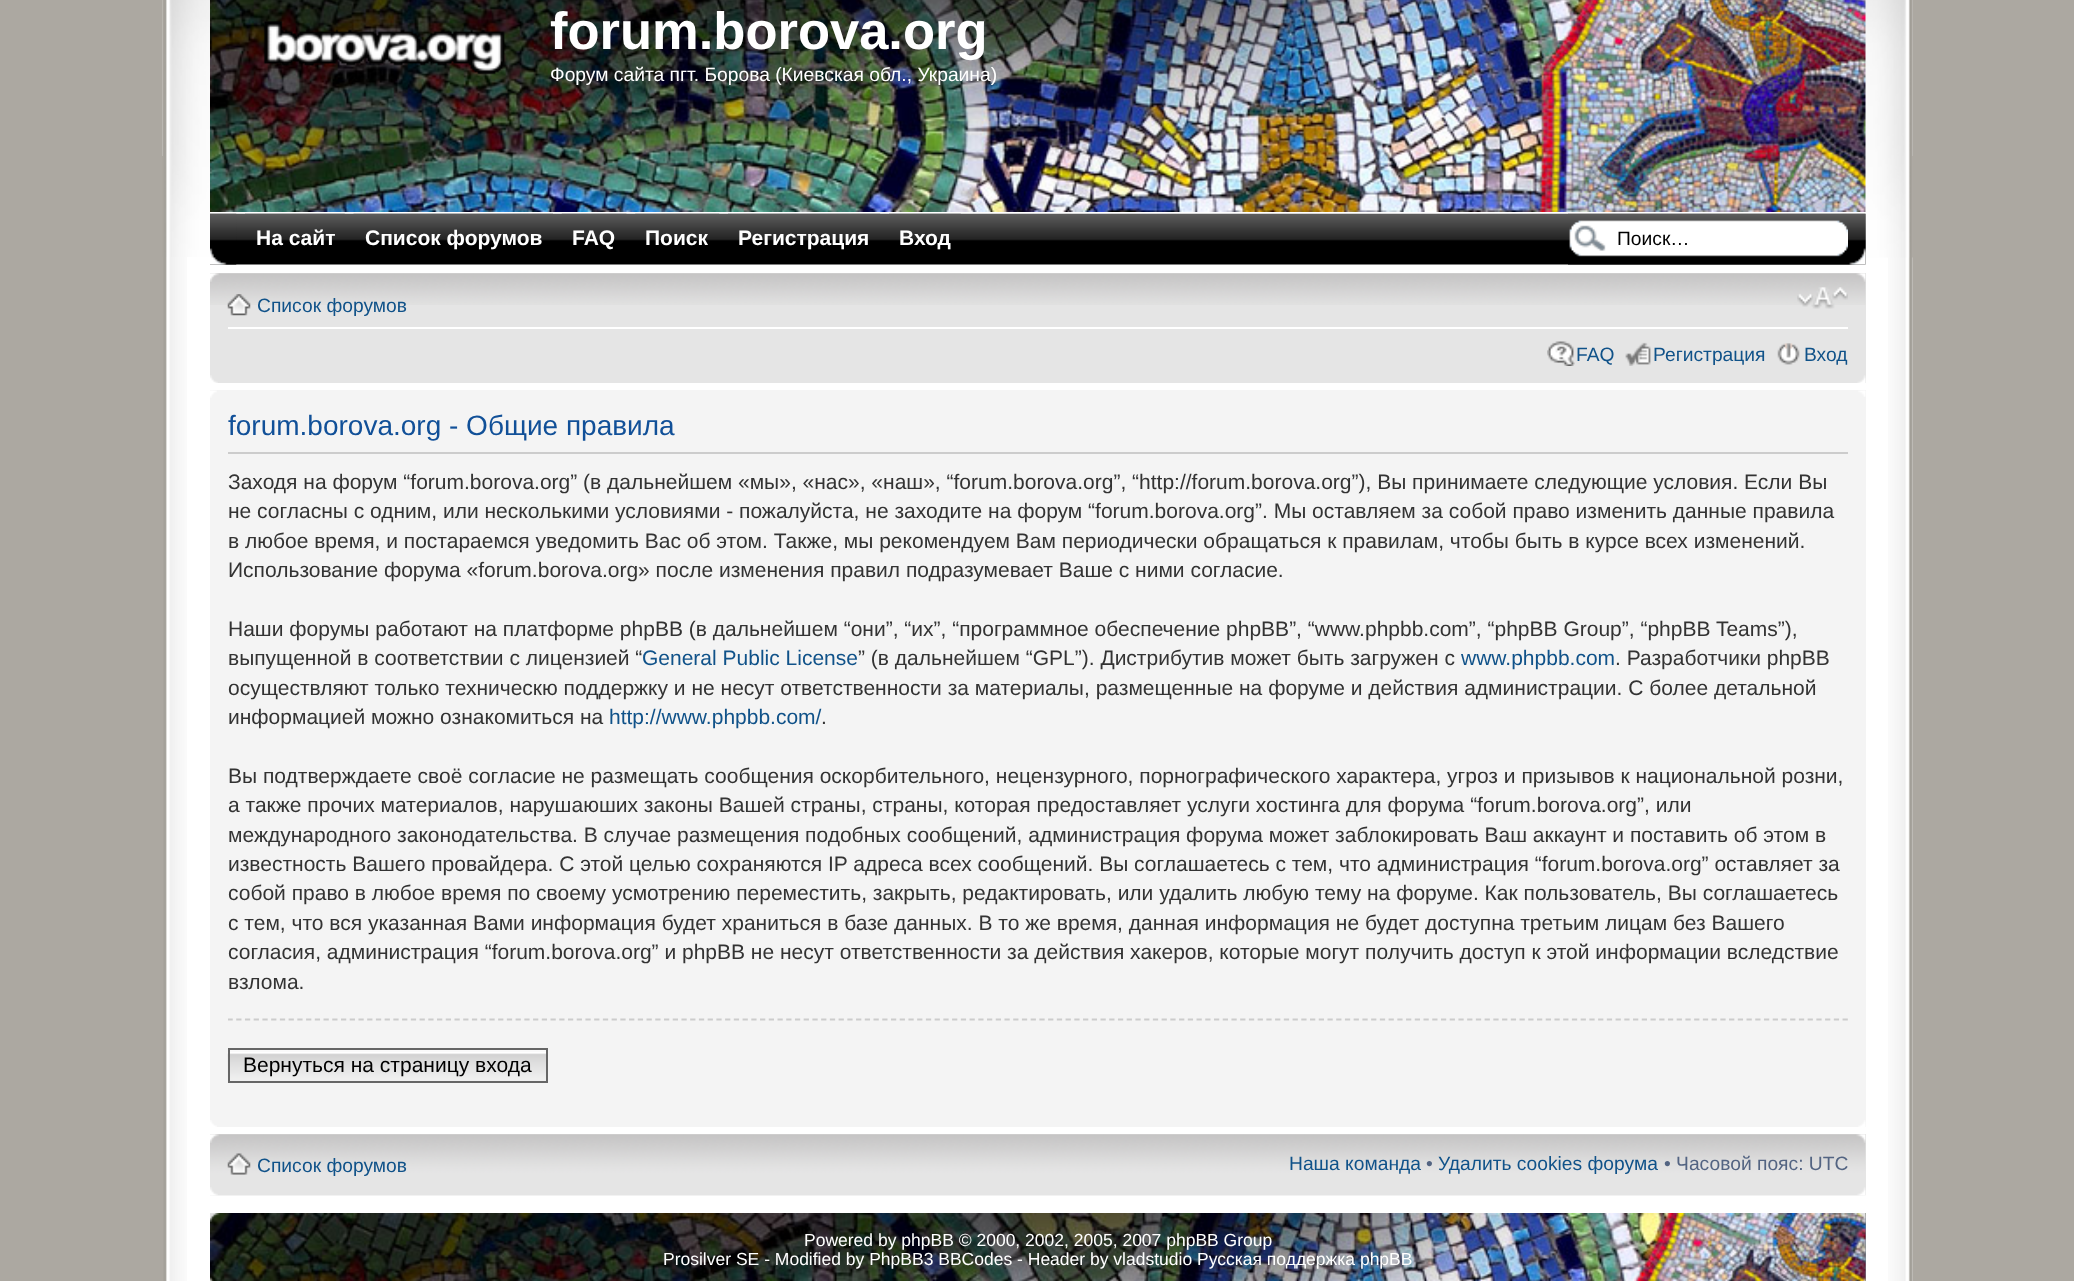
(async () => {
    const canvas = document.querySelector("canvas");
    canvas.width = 2074;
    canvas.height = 1281;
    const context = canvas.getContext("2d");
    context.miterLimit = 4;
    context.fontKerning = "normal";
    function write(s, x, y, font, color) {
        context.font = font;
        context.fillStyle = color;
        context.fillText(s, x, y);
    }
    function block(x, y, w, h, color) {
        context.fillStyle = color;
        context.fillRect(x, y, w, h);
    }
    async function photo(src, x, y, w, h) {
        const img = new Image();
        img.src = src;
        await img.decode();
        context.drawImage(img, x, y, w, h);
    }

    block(0, 0, 2074, 1281, "rgb(172, 168, 161)");
    block(187, 0, 1726, 1281, "rgb(255, 255, 255)");
    await photo("media/1.png", 163, 257, 24, 1024);
    await photo("media/2.png", 1888, 0, 25, 1281);
    await photo("media/3.png", 162, 0, 1751, 156);
    await photo("media/4.png", 162, 0, 49, 257);
    await photo("media/5.png", 1865, 0, 48, 258);
    await photo("media/6.png", 210, 0, 1656, 212);
    await photo("media/7.png", 263, 21, 242, 54);
    write("forum.borova.org", 550, 49, "bold 52.5px Liberation Sans", "rgb(255, 255, 255)");
    write("Форум сайта пгт. Борова (Киевская обл., Украина)", 550, 81, "19.25px Liberation Sans", "rgb(255, 255, 255)");
    await photo("media/8.png", 210, 213, 1656, 52);
    await photo("media/9.png", 210, 213, 27, 52);
    await photo("media/10.png", 245, 213, 100, 1);
    write("На сайт", 256, 245, "bold 21px Liberation Sans", "rgb(255, 255, 255)");
    await photo("media/11.png", 353, 213, 200, 1);
    write("Список форумов", 365, 245, "bold 21px Liberation Sans", "rgb(255, 255, 255)");
    await photo("media/12.png", 561, 213, 66, 1);
    write("FAQ", 572, 245, "bold 21px Liberation Sans", "rgb(255, 255, 255)");
    await photo("media/13.png", 635, 213, 85, 1);
    write("Поиск", 645, 245, "bold 21px Liberation Sans", "rgb(255, 255, 255)");
    await photo("media/14.png", 728, 213, 153, 1);
    write("Регистрация", 738, 245, "bold 21px Liberation Sans", "rgb(255, 255, 255)");
    await photo("media/15.png", 889, 213, 72, 1);
    write("Вход", 899, 245, "bold 21px Liberation Sans", "rgb(255, 255, 255)");
    await photo("media/16.png", 1568, 213, 280, 52);
    write("Поиск…", 1617, 245, "19.25px Liberation Sans", "rgb(0, 0, 0)");
    await photo("media/17.png", 1848, 213, 18, 52);
    block(210, 273, 1656, 110, "rgb(229, 229, 229)");
    await photo("media/18.png", 210, 273, 1656, 32);
    await photo("media/19.png", 210, 273, 9, 9);
    await photo("media/20.png", 1856, 273, 10, 9);
    block(228, 327, 1620, 2, "rgb(255, 255, 255)");
    await photo("media/21.png", 227, 294, 24, 22);
    write("Список форумов", 257, 312, "19.25px Liberation Sans", "rgb(16, 82, 137)");
    await photo("media/22.png", 1797, 287, 51, 22);
    await photo("media/23.png", 1547, 341, 28, 25);
    write("FAQ", 1576, 361, "19.25px Liberation Sans", "rgb(16, 82, 137)");
    await photo("media/24.png", 1625, 342, 26, 24);
    write("Регистрация", 1653, 361, "19.25px Liberation Sans", "rgb(16, 82, 137)");
    await photo("media/25.png", 1777, 343, 23, 22);
    write("Вход", 1804, 361, "19.25px Liberation Sans", "rgb(16, 82, 137)");
    await photo("media/26.png", 210, 375, 8, 8);
    await photo("media/27.png", 1857, 375, 9, 8);
    block(210, 390, 1656, 737, "rgb(244, 244, 244)");
    await photo("media/28.png", 210, 390, 7, 8);
    await photo("media/29.png", 1858, 390, 8, 7);
    block(228, 452, 1620, 2, "rgb(204, 204, 204)");
    write("forum.borova.org - Общие правила", 228, 435, "28px Liberation Sans", "rgb(17, 80, 152)");
    write("Заходя на форум “forum.borova.org” (в дальнейшем «мы», «нас», «наш», “forum.borova.org”, “http://forum.borova.org”), Вы принимаете следующие условия. Если Вы", 228, 489, "21px Liberation Sans", "rgb(51, 51, 51)");
    write("не согласны с одним, или несколькими условиями - пожалуйста, не заходите на форум “forum.borova.org”. Мы оставляем за собой право изменить данные правила", 228, 518, "21px Liberation Sans", "rgb(51, 51, 51)");
    write("в любое время, и постараемся уведомить Вас об этом. Также, мы рекомендуем Вам периодически обращаться к правилам, чтобы быть в курсе всех изменений.", 228, 548, "21px Liberation Sans", "rgb(51, 51, 51)");
    write("Использование форума «forum.borova.org» после изменения правил подразумевает Ваше с ними согласие.", 228, 577, "21px Liberation Sans", "rgb(51, 51, 51)");
    write("Наши форумы работают на платформе phpBB (в дальнейшем “они”, “их”, “программное обеспечение phpBB”, “www.phpbb.com”, “phpBB Group”, “phpBB Teams”),", 228, 636, "21px Liberation Sans", "rgb(51, 51, 51)");
    write("выпущенной в соответствии с лицензией “", 228, 665, "21px Liberation Sans", "rgb(51, 51, 51)");
    write("General Public License", 642, 665, "21px Liberation Sans", "rgb(16, 82, 137)");
    write("” (в дальнейшем “GPL”). Дистрибутив может быть загружен с", 858, 665, "21px Liberation Sans", "rgb(51, 51, 51)");
    write("www.phpbb.com", 1461, 665, "21px Liberation Sans", "rgb(16, 82, 137)");
    write(". Разработчики phpBB", 1615, 665, "21px Liberation Sans", "rgb(51, 51, 51)");
    write("осуществляют только техническю поддержку и не несут ответственности за материалы, размещенные на форуме и действия администрации. С более детальной", 228, 695, "21px Liberation Sans", "rgb(51, 51, 51)");
    write("информацией можно ознакомиться на", 228, 724, "21px Liberation Sans", "rgb(51, 51, 51)");
    write("http://www.phpbb.com/", 609, 724, "21px Liberation Sans", "rgb(16, 82, 137)");
    write(".", 821, 724, "21px Liberation Sans", "rgb(51, 51, 51)");
    write("Вы подтверждаете своё согласие не размещать сообщения оскорбительного, нецензурного, порнографического характера, угроз и призывов к национальной розни,", 228, 783, "21px Liberation Sans", "rgb(51, 51, 51)");
    write("а также прочих материалов, нарушаюших законы Вашей страны, страны, которая предоставляет услуги хостинга для форума “forum.borova.org”, или", 228, 812, "21px Liberation Sans", "rgb(51, 51, 51)");
    write("международного законодательства. В случае размещения подобных сообщений, администрация форума может заблокировать Ваш аккаунт и поставить об этом в", 228, 842, "21px Liberation Sans", "rgb(51, 51, 51)");
    write("известность Вашего провайдера. С этой целью сохраняются IP адреса всех сообщений. Вы соглашаетесь с тем, что администрация “forum.borova.org” оставляет за", 228, 871, "21px Liberation Sans", "rgb(51, 51, 51)");
    write("собой право в любое время по своему усмотрению переместить, закрыть, редактировать, или удалить любую тему на форуме. Как пользователь, Вы соглашаетесь", 228, 900, "21px Liberation Sans", "rgb(51, 51, 51)");
    write("с тем, что вся указанная Вами информация будет храниться в базе данных. В то же время, данная информация не будет доступна третьим лицам без Вашего", 228, 930, "21px Liberation Sans", "rgb(51, 51, 51)");
    write("согласия, администрация “forum.borova.org” и phpBB не несут ответственности за действия хакеров, которые могут получить доступ к этой информации вследствие", 228, 959, "21px Liberation Sans", "rgb(51, 51, 51)");
    write("взлома.", 228, 989, "21px Liberation Sans", "rgb(51, 51, 51)");
    context.save();
    context.beginPath();
    context.rect(228, 399, 1620, 719);
    context.clip();
    context.beginPath();
    context.moveTo(227.5, 1019.5);
    context.lineTo(1848, 1019.5);
    context.strokeStyle = "rgb(204, 204, 204)";
    context.lineWidth = 1.8;
    context.setLineDash([5.25, 3.48]);
    context.stroke();
    context.restore();
    await photo("media/30.png", 227, 1052, 319, 31);
    block(230, 1050, 316, 2, "rgb(250, 250, 250)");
    context.strokeStyle = "rgb(102, 102, 102)";
    context.lineWidth = 2;
    context.strokeRect(229, 1049, 318, 33);
    write("Вернуться на страницу входа", 243, 1072, "21px Liberation Sans", "rgb(0, 0, 0)");
    await photo("media/31.png", 210, 1120, 7, 7);
    await photo("media/32.png", 1858, 1120, 8, 7);
    block(210, 1134, 1656, 61, "rgb(229, 229, 229)");
    await photo("media/33.png", 210, 1134, 1656, 62);
    await photo("media/19.png", 210, 1134, 9, 9);
    await photo("media/20.png", 1856, 1134, 10, 9);
    await photo("media/34.png", 227, 1153, 24, 22);
    write("Список форумов", 257, 1172, "19.25px Liberation Sans", "rgb(16, 82, 137)");
    write("Наша команда", 1289, 1170, "19.25px Liberation Sans", "rgb(16, 82, 137)");
    write("•", 1426, 1170, "19.25px Liberation Sans", "rgb(83, 100, 130)");
    write("Удалить cookies форума", 1438, 1170, "19.25px Liberation Sans", "rgb(16, 82, 137)");
    write("• Часовой пояс: UTC", 1664, 1170, "19.25px Liberation Sans", "rgb(83, 100, 130)");
    await photo("media/35.png", 210, 1187, 8, 9);
    await photo("media/36.png", 1857, 1187, 9, 9);
    block(1865, 1213, 1, 68, "rgb(124, 136, 145)");
    await photo("media/37.png", 210, 1213, 1656, 68);
    await photo("media/38.png", 210, 1213, 10, 9);
    await photo("media/39.png", 1857, 1213, 9, 9);
    write("Powered by phpBB © 2000, 2002, 2005, 2007 phpBB Group", 804, 1246, "17.5px Liberation Sans", "rgb(255, 255, 255)");
    write("Prosilver SE - Modified by PhpBB3 BBCodes - Header by vladstudio Русская поддержка phpBB", 663, 1265, "17.5px Liberation Sans", "rgb(255, 255, 255)");
    await photo("media/40.png", 210, 1277, 3, 4);
    await photo("media/41.png", 1863, 1277, 3, 4);
})();
